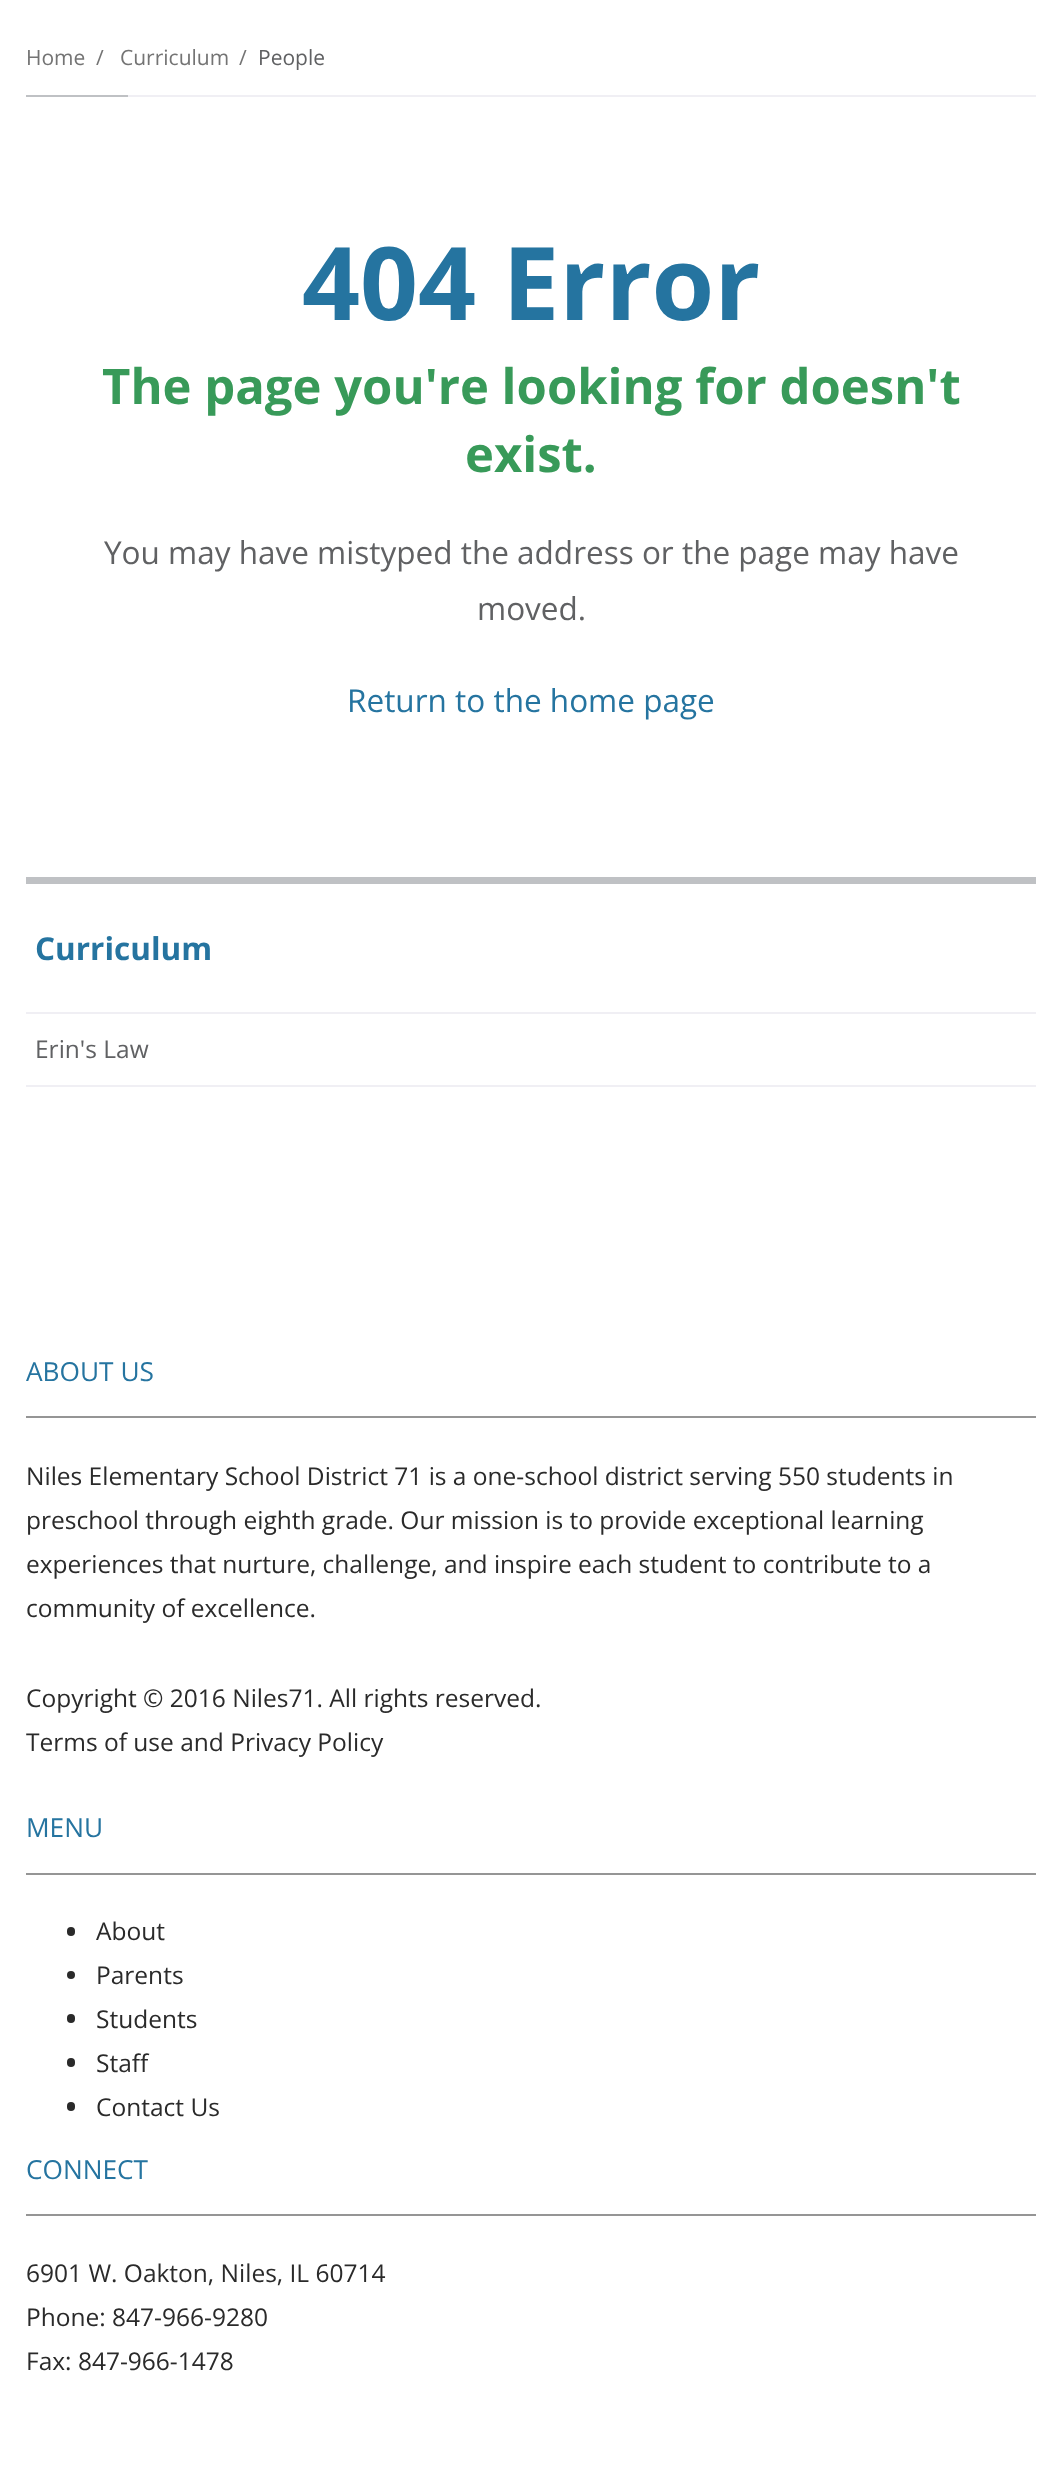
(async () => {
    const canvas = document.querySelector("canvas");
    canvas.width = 1061;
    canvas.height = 2481;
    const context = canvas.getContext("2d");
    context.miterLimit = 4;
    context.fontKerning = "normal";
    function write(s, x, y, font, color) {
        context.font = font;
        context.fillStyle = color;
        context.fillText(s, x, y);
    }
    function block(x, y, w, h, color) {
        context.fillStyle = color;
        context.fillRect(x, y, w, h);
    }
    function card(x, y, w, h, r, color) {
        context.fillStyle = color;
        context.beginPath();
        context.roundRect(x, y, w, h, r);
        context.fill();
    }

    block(0, 0, 1061, 2481, "rgb(255, 255, 255)");
    block(128, 95, 908, 2, "rgb(240, 239, 244)");
    write("Home", 26, 65, "21px Open Sans", "rgb(116, 116, 116)");
    write("/", 96, 65, "21px Open Sans", "rgb(116, 116, 116)");
    write("Curriculum", 120, 65, "21px Open Sans", "rgb(116, 116, 116)");
    write("/", 239, 65, "21px Open Sans", "rgb(116, 116, 116)");
    write("People", 258, 65, "21px Open Sans", "rgb(96, 97, 99)");
    block(26, 95, 102, 2, "rgb(191, 193, 196)");
    write("404 Error", 302, 320, "bold 101.5px Open Sans", "rgb(37, 116, 160)");
    write("The page you're looking for doesn't", 102, 404, "bold 49px Open Sans", "rgb(56, 154, 89)");
    write("exist.", 465, 472, "bold 49px Open Sans", "rgb(56, 154, 89)");
    write("You may have mistyped the address or the page may have", 104, 564, "31.5px Open Sans", "rgb(96, 97, 99)");
    write("moved.", 477, 620, "31.5px Open Sans", "rgb(96, 97, 99)");
    write("Return to the home page", 347, 712, "31.5px Open Sans", "rgb(37, 116, 160)");
    block(26, 877, 1010, 7, "rgb(191, 193, 196)");
    write("Curriculum", 35, 960, "bold 31.5px Open Sans", "rgb(37, 116, 160)");
    block(26, 1012, 1010, 2, "rgb(240, 239, 244)");
    block(26, 1085, 1010, 2, "rgb(240, 239, 244)");
    write("Erin's Law", 35, 1058, "24.5px Open Sans", "rgb(96, 97, 99)");
    write("ABOUT US", 26, 1381, "26.25px Open Sans", "rgb(37, 116, 160)");
    block(26, 1416, 1010, 2, "rgb(149, 149, 149)");
    write("Niles Elementary School District 71 is a one-school district serving 550 students in", 26, 1485, "24.5px Open Sans", "rgb(42, 42, 42)");
    write("preschool through eighth grade. Our mission is to provide exceptional learning", 26, 1529, "24.5px Open Sans", "rgb(42, 42, 42)");
    write("experiences that nurture, challenge, and inspire each student to contribute to a", 26, 1573, "24.5px Open Sans", "rgb(42, 42, 42)");
    write("community of excellence.", 26, 1617, "24.5px Open Sans", "rgb(42, 42, 42)");
    write("Copyright © 2016 Niles71. All rights reserved.", 26, 1707, "24.5px Open Sans", "rgb(42, 42, 42)");
    write("Terms of use and Privacy Policy", 26, 1751, "24.5px Open Sans", "rgb(42, 42, 42)");
    write("MENU", 26, 1837, "26.25px Open Sans", "rgb(37, 116, 160)");
    block(26, 1873, 1010, 2, "rgb(149, 149, 149)");
    card(67, 1927, 8, 9, 4, "rgb(42, 42, 42)");
    write("About", 96, 1940, "24.5px Open Sans", "rgb(42, 42, 42)");
    context.beginPath();
    context.arc(71, 1975, 4, 0, Math.PI * 2);
    context.fill();
    write("Parents", 96, 1984, "24.5px Open Sans", "rgb(42, 42, 42)");
    card(67, 2014, 8, 9, 4, "rgb(42, 42, 42)");
    write("Students", 96, 2028, "24.5px Open Sans", "rgb(42, 42, 42)");
    card(67, 2058, 8, 9, 4, "rgb(42, 42, 42)");
    write("Staff", 96, 2072, "24.5px Open Sans", "rgb(42, 42, 42)");
    card(67, 2102, 8, 9, 4, "rgb(42, 42, 42)");
    write("Contact Us", 96, 2116, "24.5px Open Sans", "rgb(42, 42, 42)");
    write("CONNECT", 26, 2179, "26.25px Open Sans", "rgb(37, 116, 160)");
    block(26, 2214, 1010, 2, "rgb(149, 149, 149)");
    write("6901 W. Oakton, Niles, IL 60714", 26, 2282, "24.5px Open Sans", "rgb(42, 42, 42)");
    write("Phone: 847-966-9280", 26, 2326, "24.5px Open Sans", "rgb(42, 42, 42)");
    write("Fax: 847-966-1478", 26, 2370, "24.5px Open Sans", "rgb(42, 42, 42)");
})();
